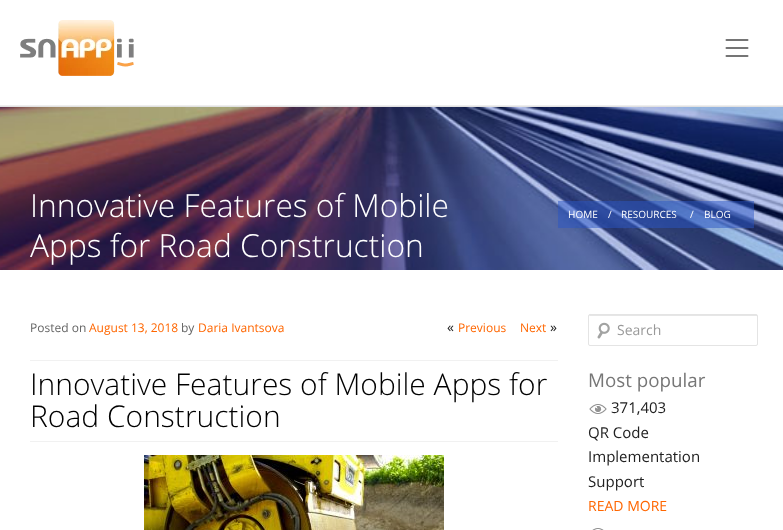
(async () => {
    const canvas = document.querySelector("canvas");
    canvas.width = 783;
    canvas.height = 530;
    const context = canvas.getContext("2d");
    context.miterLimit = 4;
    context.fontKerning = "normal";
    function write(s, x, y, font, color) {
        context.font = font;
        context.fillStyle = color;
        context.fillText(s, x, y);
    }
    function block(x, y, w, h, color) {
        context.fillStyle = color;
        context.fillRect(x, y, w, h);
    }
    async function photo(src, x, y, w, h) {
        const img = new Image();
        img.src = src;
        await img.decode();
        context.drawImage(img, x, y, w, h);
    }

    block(0, 0, 783, 530, "rgb(255, 255, 255)");
    block(0, 105, 783, 1, "rgb(238, 238, 238)");
    await photo("media/1.png", 20, 20, 114, 56);
    context.beginPath();
    context.moveTo(726.5, 40);
    context.lineTo(747.5, 40);
    context.moveTo(726.5, 48);
    context.lineTo(747.5, 48);
    context.moveTo(726.5, 56);
    context.lineTo(747.5, 56);
    context.strokeStyle = "rgb(117, 117, 117)";
    context.lineWidth = 2;
    context.lineCap = "round";
    context.lineJoin = "round";
    context.stroke();
    block(0, 106, 783, 1, "rgb(225, 225, 225)");
    await photo("media/2.png", 0, 107, 783, 163);
    write("Innovative Features of Mobile", 30, 217, "300 31.75px Open Sans", "rgb(255, 255, 255)");
    write("Apps for Road Construction", 30, 257, "300 31.75px Open Sans", "rgb(255, 255, 255)");
    block(558, 201, 196, 27, "rgba(42, 85, 197, 0.5)");
    write("HOME", 568, 218, "10px Open Sans", "rgb(255, 255, 255)");
    write("/", 608, 218, "10px Open Sans", "rgb(255, 255, 255)");
    write("RESOURCES", 621, 218, "10px Open Sans", "rgb(255, 255, 255)");
    write("/", 690, 218, "10px Open Sans", "rgb(255, 255, 255)");
    write("BLOG", 704, 218, "10px Open Sans", "rgb(255, 255, 255)");
    write("Posted on", 30, 332, "12px Open Sans", "rgb(102, 102, 102)");
    write("August 13, 2018", 89, 332, "12px Open Sans", "rgb(255, 102, 0)");
    write("by", 181, 332, "12px Open Sans", "rgb(102, 102, 102)");
    write("Daria Ivantsova", 198, 332, "12px Open Sans", "rgb(255, 102, 0)");
    write("«", 447, 332, "14px Open Sans", "rgb(33, 33, 33)");
    write("Previous", 458, 332, "12px Open Sans", "rgb(255, 102, 0)");
    write("Next", 520, 332, "12px Open Sans", "rgb(255, 102, 0)");
    write("»", 550, 332, "14px Open Sans", "rgb(33, 33, 33)");
    block(30, 360, 528, 1, "rgb(241, 241, 241)");
    block(30, 441, 528, 1, "rgb(241, 241, 241)");
    write("Innovative Features of Mobile Apps for", 30, 395, "300 30px Open Sans", "rgb(0, 0, 0)");
    write("Road Construction", 30, 427, "300 30px Open Sans", "rgb(0, 0, 0)");
    await photo("media/3.png", 144, 455, 300, 75);
    await photo("media/4.png", 597, 322, 13, 17);
    context.fillStyle = "rgb(230, 230, 230)";
    context.beginPath();
    context.moveTo(590, 316);
    context.lineTo(756, 316);
    context.bezierCurveTo(757, 316, 757, 316, 757, 317);
    context.lineTo(757, 315);
    context.lineTo(590, 315);
    context.bezierCurveTo(589, 315, 589, 316, 589, 317);
    context.bezierCurveTo(589, 316, 589, 316, 590, 316);
    context.closePath();
    context.fill();
    context.beginPath();
    context.roundRect(588.5, 314.5, 169, 31, 1.5);
    context.strokeStyle = "rgb(228, 228, 228)";
    context.lineWidth = 1;
    context.lineJoin = "miter";
    context.stroke();
    write("Search", 617, 335, "14px Open Sans", "rgb(153, 153, 153)");
    write("Most popular", 588, 387, "18.75px Open Sans", "rgb(119, 119, 119)");
    await photo("media/5.png", 589, 404, 18, 10);
    write("371,403", 611, 413, "15px Open Sans", "rgb(33, 33, 33)");
    write("QR Code", 588, 438, "15px Open Sans", "rgb(33, 33, 33)");
    write("Implementation", 588, 462, "15px Open Sans", "rgb(33, 33, 33)");
    write("Support", 588, 487, "15px Open Sans", "rgb(33, 33, 33)");
    write("READ MORE", 588, 511, "14px Open Sans", "rgb(255, 102, 0)");
    await photo("media/6.png", 592, 528, 12, 2);
})();
